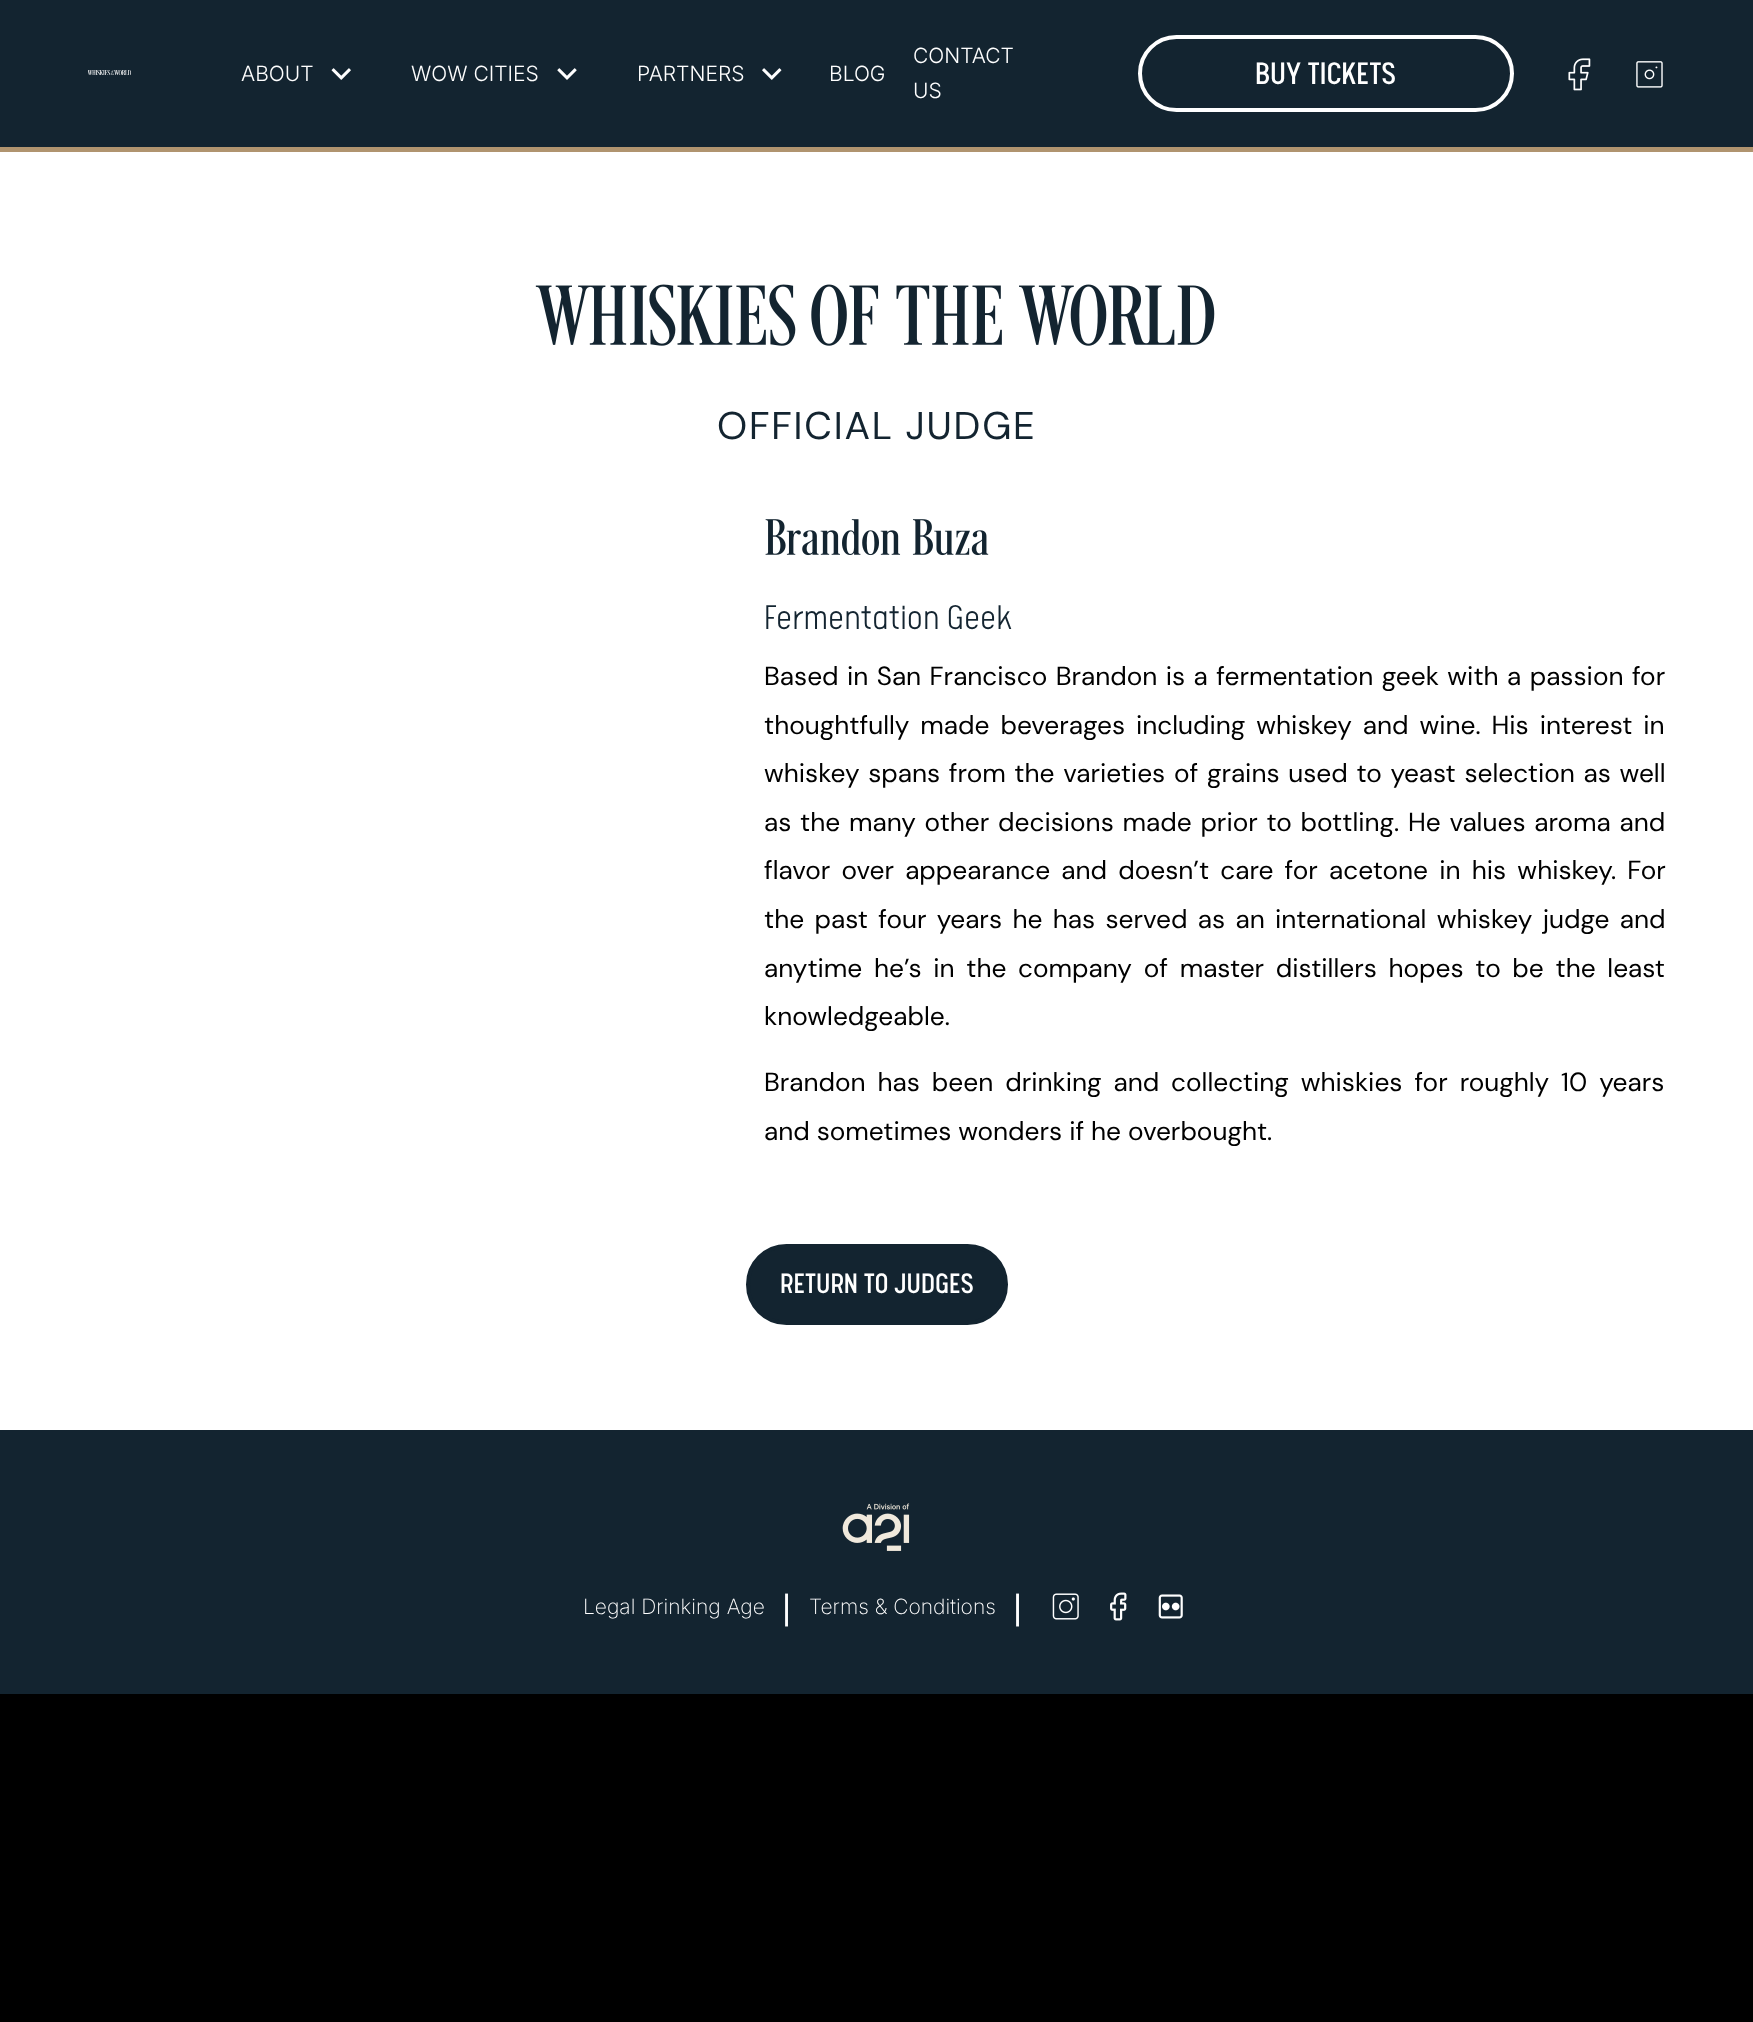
(async () => {
    const canvas = document.querySelector("canvas");
    canvas.width = 1753;
    canvas.height = 2022;
    const context = canvas.getContext("2d");
    context.miterLimit = 4;
    context.fontKerning = "normal";
    function write(s, x, y, font, color) {
        context.font = font;
        context.fillStyle = color;
        context.fillText(s, x, y);
    }
    function block(x, y, w, h, color) {
        context.fillStyle = color;
        context.fillRect(x, y, w, h);
    }
    async function photo(src, x, y, w, h) {
        const img = new Image();
        img.src = src;
        await img.decode();
        context.drawImage(img, x, y, w, h);
    }

    block(0, 0, 1753, 2022, "rgb(0, 0, 0)");
    block(0, 0, 1753, 147, "rgb(19, 36, 48)");
    block(0, 147, 1753, 5, "rgb(176, 148, 111)");
    await photo("media/1.png", 88, 70, 43, 5);
    write("ABOUT", 241, 81, "300 21px Inter", "rgb(255, 255, 255)");
    await photo("media/2.png", 331, 68, 20, 12);
    write("WOW CITIES", 411, 81, "300 21px Inter", "rgb(255, 255, 255)");
    await photo("media/3.png", 557, 68, 20, 12);
    write("PARTNERS", 637, 81, "300 21px Inter", "rgb(255, 255, 255)");
    await photo("media/4.png", 762, 68, 20, 12);
    write("BLOG", 829, 81, "300 21px Inter", "rgb(255, 255, 255)");
    write("CONTACT", 913, 63, "300 21px Inter", "rgb(255, 255, 255)");
    write("US", 913, 98, "300 21px Inter", "rgb(255, 255, 255)");
    context.beginPath();
    context.roundRect(1140, 37, 372, 73, 36.5);
    context.strokeStyle = "rgb(255, 255, 255)";
    context.lineWidth = 4;
    context.stroke();
    write("BUY TICKETS", 1255, 84, "35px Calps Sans", "rgb(255, 255, 255)");
    await photo("media/5.png", 1568, 58, 23, 33);
    await photo("media/6.png", 1636, 61, 27, 27);
    block(0, 152, 1753, 1278, "rgb(255, 255, 255)");
    await photo("media/7.png", 535, 284, 680, 62);
    context.letterSpacing = "1.75px";
    write("OFFICIAL JUDGE", 717, 439, "38.5px DM Sans", "rgb(19, 36, 48)");
    await photo("media/8.png", 765, 519, 224, 37);
    context.letterSpacing = "0px";
    write("Fermentation Geek", 764, 629, "300 38.5px Calps Sans", "rgb(19, 36, 48)");
    context.wordSpacing = "1.5px";
    write("Based in San Francisco Brandon is a fermentation geek with a passion for", 764, 685, "26.25px DM Sans", "rgb(0, 0, 0)");
    context.wordSpacing = "4px";
    write("thoughtfully made beverages including whiskey and wine. His interest in", 764, 734, "26.25px DM Sans", "rgb(0, 0, 0)");
    context.wordSpacing = "1.75px";
    write("whiskey spans from the varieties of grains used to yeast selection as well", 764, 782, "26.25px DM Sans", "rgb(0, 0, 0)");
    context.wordSpacing = "1.8px";
    write("as the many other decisions made prior to bottling. He values aroma and", 764, 831, "26.25px DM Sans", "rgb(0, 0, 0)");
    context.wordSpacing = "4.25px";
    write("flavor over appearance and doesn’t care for acetone in his whiskey. For", 764, 879, "26.25px DM Sans", "rgb(0, 0, 0)");
    context.wordSpacing = "3.4px";
    write("the past four years he has served as an international whiskey judge and", 764, 928, "26.25px DM Sans", "rgb(0, 0, 0)");
    context.wordSpacing = "4.75px";
    write("anytime he’s in the company of master distillers hopes to be the least", 764, 977, "26.25px DM Sans", "rgb(0, 0, 0)");
    context.wordSpacing = "0px";
    write("knowledgeable.", 764, 1025, "26.25px DM Sans", "rgb(0, 0, 0)");
    context.wordSpacing = "5px";
    write("Brandon has been drinking and collecting whiskies for roughly 10 years", 764, 1091, "26.25px DM Sans", "rgb(0, 0, 0)");
    context.wordSpacing = "0px";
    write("and sometimes wonders if he overbought.", 764, 1140, "26.25px DM Sans", "rgb(0, 0, 0)");
    context.fillStyle = "rgb(19, 36, 48)";
    context.beginPath();
    context.roundRect(748, 1246, 258, 77, 38.5);
    context.fill();
    context.strokeStyle = "rgb(19, 36, 48)";
    context.stroke();
    write("RETURN TO JUDGES", 780, 1293, "31.5px Calps Sans", "rgb(255, 255, 255)");
    block(0, 1430, 1753, 264, "rgb(19, 36, 48)");
    await photo("media/9.png", 842, 1503, 68, 48);
    write("Legal Drinking Age", 583, 1614, "200 21px Inter", "rgb(255, 255, 255)");
    write("|", 782, 1619, "35px Liberation Sans", "rgb(255, 255, 255)");
    write("Terms & Conditions", 809, 1614, "200 21px Inter", "rgb(255, 255, 255)");
    write("|", 1013, 1619, "35px Liberation Sans", "rgb(255, 255, 255)");
    await photo("media/10.png", 1052, 1593, 27, 27);
    await photo("media/11.png", 1110, 1592, 17, 29);
    await photo("media/12.png", 1158, 1594, 25, 25);
})();
